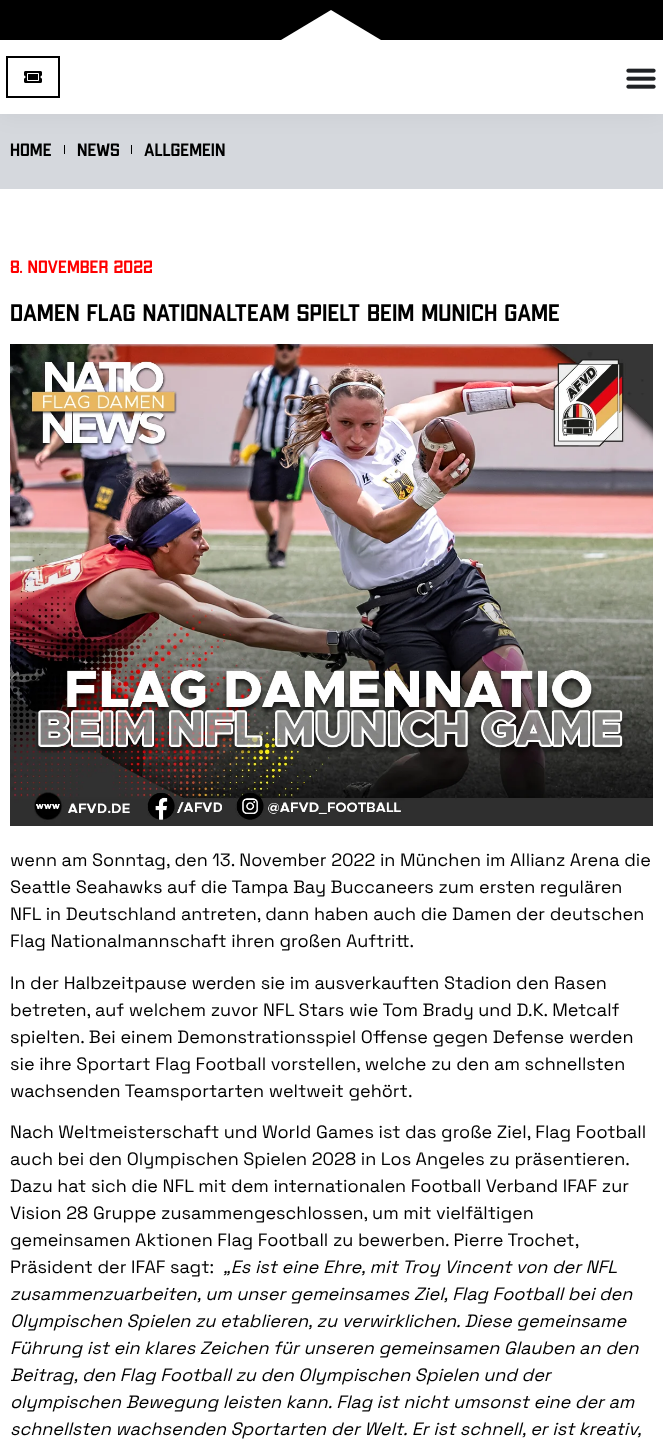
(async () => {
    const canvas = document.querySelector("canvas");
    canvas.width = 663;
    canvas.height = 1439;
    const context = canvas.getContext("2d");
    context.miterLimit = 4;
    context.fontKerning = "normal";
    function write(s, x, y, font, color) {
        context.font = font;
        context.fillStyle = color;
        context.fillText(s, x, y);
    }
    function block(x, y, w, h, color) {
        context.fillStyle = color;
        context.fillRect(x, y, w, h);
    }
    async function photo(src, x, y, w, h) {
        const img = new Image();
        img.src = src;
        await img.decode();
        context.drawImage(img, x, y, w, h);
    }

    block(0, 0, 663, 1439, "rgb(255, 255, 255)");
    block(0, 114, 663, 75, "rgb(213, 216, 221)");
    block(64, 145, 1, 9, "rgb(0, 0, 0)");
    block(131, 145, 1, 9, "rgb(0, 0, 0)");
    context.fillStyle = "rgba(0, 0, 0, 0.05)";
    context.filter = "blur(12px)";
    context.beginPath();
    context.rect(0, 0, 663, 114);
    context.fill();
    context.filter = "none";
    block(0, 0, 663, 40, "rgb(0, 0, 0)");
    context.fillStyle = "rgb(255, 255, 255)";
    context.beginPath();
    context.moveTo(331, 10);
    context.lineTo(386, 43);
    context.lineTo(386, 45);
    context.lineTo(276, 45);
    context.lineTo(276, 43);
    context.closePath();
    context.fill();
    block(0, 40, 663, 74, "rgb(255, 255, 255)");
    context.strokeStyle = "rgb(0, 0, 0)";
    context.lineWidth = 2;
    context.strokeRect(7, 57, 52, 40);
    await photo("media/1.png", 24, 71, 18, 12);
    await photo("media/2.png", 626, 68, 30, 21);
    write("Home", 10, 156, "500 18px 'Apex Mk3'", "rgb(0, 0, 0)");
    write("News", 77, 156, "500 18px 'Apex Mk3'", "rgb(0, 0, 0)");
    write("Allgemein", 144, 156, "500 18px 'Apex Mk3'", "rgb(0, 0, 0)");
    write("8. November 2022", 10, 273, "500 18px 'Apex Mk3'", "rgb(255, 0, 0)");
    write("Damen Flag Nationalteam spielt beim Munich Game", 10, 321, "500 24px 'Apex Mk3'", "rgb(0, 0, 0)");
    await photo("media/3.png", 10, 344, 643, 482);
    write("wenn am Sonntag, den 13. November 2022 in München im Allianz Arena die", 10, 866, "18px Space Grotesk", "rgb(0, 0, 0)");
    write("Seattle Seahawks auf die Tampa Bay Buccaneers zum ersten regulären", 10, 893, "18px Space Grotesk", "rgb(0, 0, 0)");
    write("NFL in Deutschland antreten, dann haben auch die Damen der deutschen", 10, 920, "18px Space Grotesk", "rgb(0, 0, 0)");
    write("Flag Nationalmannschaft ihren großen Auftritt.", 10, 947, "18px Space Grotesk", "rgb(0, 0, 0)");
    write("In der Halbzeitpause werden sie im ausverkauften Stadion den Rasen", 10, 989, "18px Space Grotesk", "rgb(0, 0, 0)");
    write("betreten, auf welchem zuvor NFL Stars wie Tom Brady und D.K. Metcalf", 10, 1016, "18px Space Grotesk", "rgb(0, 0, 0)");
    write("spielten. Bei einem Demonstrationsspiel Offense gegen Defense werden", 10, 1043, "18px Space Grotesk", "rgb(0, 0, 0)");
    write("sie ihre Sportart Flag Football vorstellen, welche zu den am schnellsten", 10, 1070, "18px Space Grotesk", "rgb(0, 0, 0)");
    write("wachsenden Teamsportarten weltweit gehört.", 10, 1097, "18px Space Grotesk", "rgb(0, 0, 0)");
    write("Nach Weltmeisterschaft und World Games ist das große Ziel, Flag Football", 10, 1138, "18px Space Grotesk", "rgb(0, 0, 0)");
    write("auch bei den Olympischen Spielen 2028 in Los Angeles zu präsentieren.", 10, 1165, "18px Space Grotesk", "rgb(0, 0, 0)");
    write("Dazu hat sich die NFL mit dem internationalen Football Verband IFAF zur", 10, 1192, "18px Space Grotesk", "rgb(0, 0, 0)");
    write("Vision 28 Gruppe zusammengeschlossen, um mit vielfältigen", 10, 1219, "18px Space Grotesk", "rgb(0, 0, 0)");
    write("gemeinsamen Aktionen Flag Football zu bewerben. Pierre Trochet,", 10, 1246, "18px Space Grotesk", "rgb(0, 0, 0)");
    write("Präsident der IFAF sagt:", 10, 1273, "18px Space Grotesk", "rgb(0, 0, 0)");
    write("„Es ist eine Ehre, mit Troy Vincent von der NFL", 223, 1273, "italic 18px Space Grotesk", "rgb(0, 0, 0)");
    write("zusammenzuarbeiten, um unser gemeinsames Ziel, Flag Football bei den", 10, 1300, "italic 18px Space Grotesk", "rgb(0, 0, 0)");
    write("Olympischen Spielen zu etablieren, zu verwirklichen. Diese gemeinsame", 10, 1327, "italic 18px Space Grotesk", "rgb(0, 0, 0)");
    write("Führung ist ein klares Zeichen für unseren gemeinsamen Glauben an den", 10, 1354, "italic 18px Space Grotesk", "rgb(0, 0, 0)");
    write("Beitrag, den Flag Football zu den Olympischen Spielen und der", 10, 1381, "italic 18px Space Grotesk", "rgb(0, 0, 0)");
    write("olympischen Bewegung leisten kann. Flag ist nicht umsonst eine der am", 10, 1408, "italic 18px Space Grotesk", "rgb(0, 0, 0)");
    write("schnellsten wachsenden Sportarten der Welt. Er ist schnell, er ist kreativ,", 10, 1435, "italic 18px Space Grotesk", "rgb(0, 0, 0)");
})();
